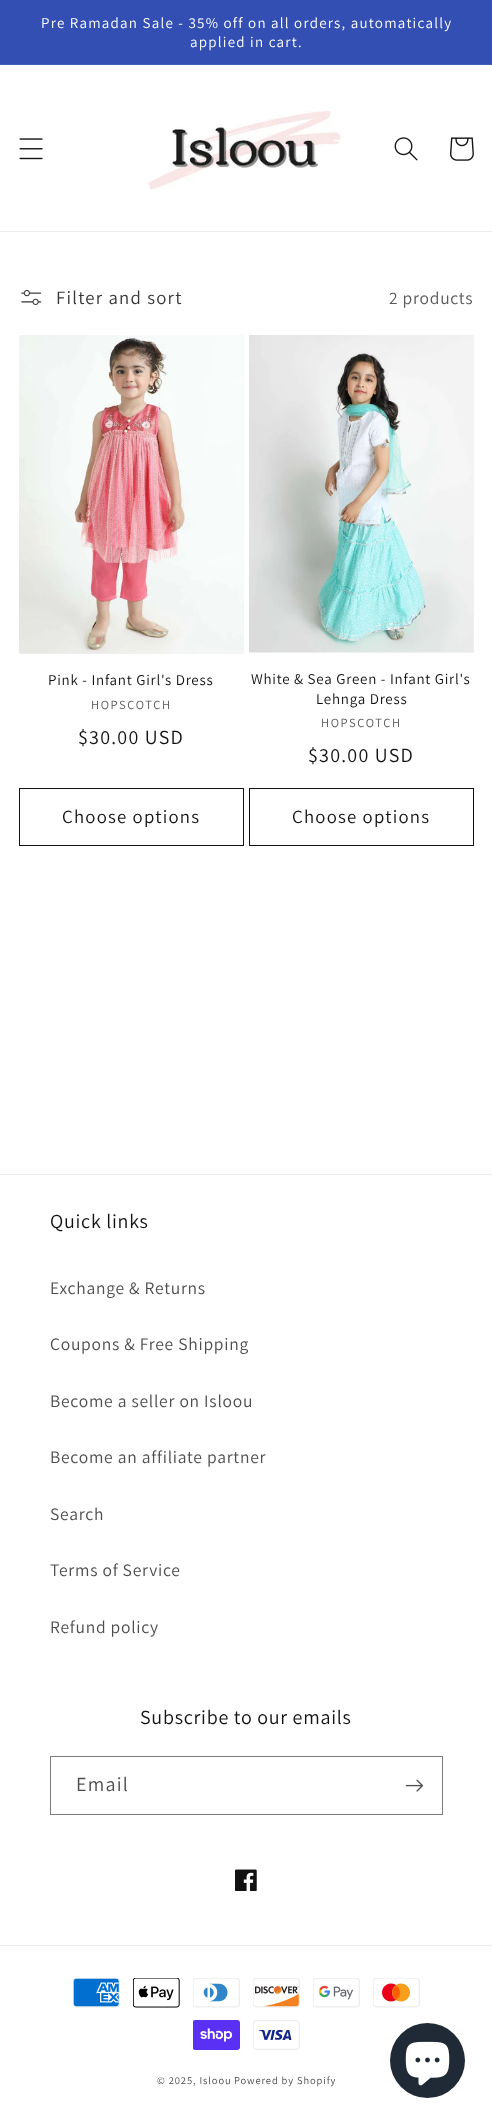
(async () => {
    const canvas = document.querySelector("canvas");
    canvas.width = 492;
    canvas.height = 2123;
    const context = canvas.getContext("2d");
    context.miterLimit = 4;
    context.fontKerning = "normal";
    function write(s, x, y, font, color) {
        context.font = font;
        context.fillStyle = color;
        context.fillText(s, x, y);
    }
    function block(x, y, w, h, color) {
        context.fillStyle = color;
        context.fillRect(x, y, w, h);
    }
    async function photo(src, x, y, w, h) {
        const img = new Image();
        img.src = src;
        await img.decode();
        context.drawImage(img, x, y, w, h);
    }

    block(0, 0, 492, 2123, "rgb(255, 255, 255)");
    block(0, 0, 492, 64, "rgb(51, 79, 180)");
    block(0, 64, 492, 1, "rgb(67, 93, 186)");
    context.letterSpacing = "1.25px";
    write("Pre Ramadan Sale - 35% off on all orders, automatically", 41, 28, "15px Assistant", "rgb(255, 255, 255)");
    write("applied in cart.", 190, 47, "15px Assistant", "rgb(255, 255, 255)");
    block(0, 231, 492, 1, "rgb(236, 236, 236)");
    await photo("media/1.png", 19, 138, 24, 22);
    await photo("media/2.png", 147, 111, 195, 79);
    await photo("media/3.png", 394, 137, 24, 24);
    await photo("media/4.png", 450, 137, 24, 24);
    await photo("media/5.png", 21, 290, 21, 15);
    write("Filter and sort", 56, 304, "18.75px Assistant", "rgb(54, 54, 54)");
    context.letterSpacing = "0.75px";
    write("2 products", 389, 304, "17.5px Assistant", "rgb(89, 89, 89)");
    block(19, 335, 225, 319, "rgb(243, 243, 243)");
    await photo("media/6.png", 19, 335, 225, 319);
    write("Pink - Infant Girl's Dress", 48, 685, "15px Assistant", "rgb(18, 18, 18)");
    context.letterSpacing = "1.6px";
    write("HOPSCOTCH", 91, 709, "12.5px Assistant", "rgb(89, 89, 89)");
    context.letterSpacing = "1.25px";
    write("$30.00 USD", 78, 744, "20px Assistant", "rgb(18, 18, 18)");
    context.strokeStyle = "rgb(18, 18, 18)";
    context.strokeRect(19.5, 788.5, 224, 57);
    write("Choose options", 62, 823, "18.75px Assistant", "rgb(18, 18, 18)");
    block(249, 335, 225, 318, "rgb(243, 243, 243)");
    await photo("media/7.png", 249, 335, 225, 318);
    context.letterSpacing = "0.75px";
    write("White & Sea Green - Infant Girl's", 251, 684, "15px Assistant", "rgb(18, 18, 18)");
    write("Lehnga Dress", 316, 704, "15px Assistant", "rgb(18, 18, 18)");
    context.letterSpacing = "1.6px";
    write("HOPSCOTCH", 321, 727, "12.5px Assistant", "rgb(89, 89, 89)");
    context.letterSpacing = "1.25px";
    write("$30.00 USD", 308, 762, "20px Assistant", "rgb(18, 18, 18)");
    context.strokeRect(249.5, 788.5, 224, 57);
    write("Choose options", 292, 823, "18.75px Assistant", "rgb(18, 18, 18)");
    block(0, 1174, 492, 1, "rgb(236, 236, 236)");
    context.letterSpacing = "0.75px";
    write("Quick links", 50, 1228, "20px Assistant", "rgb(18, 18, 18)");
    write("Exchange & Returns", 50, 1294, "17.5px Assistant", "rgb(77, 77, 77)");
    write("Coupons & Free Shipping", 50, 1350, "17.5px Assistant", "rgb(77, 77, 77)");
    write("Become a seller on Isloou", 50, 1407, "17.5px Assistant", "rgb(77, 77, 77)");
    write("Become an affiliate partner", 50, 1463, "17.5px Assistant", "rgb(77, 77, 77)");
    write("Search", 50, 1520, "17.5px Assistant", "rgb(77, 77, 77)");
    write("Terms of Service", 50, 1576, "17.5px Assistant", "rgb(77, 77, 77)");
    write("Refund policy", 50, 1633, "17.5px Assistant", "rgb(77, 77, 77)");
    write("Subscribe to our emails", 140, 1724, "20px Assistant", "rgb(18, 18, 18)");
    context.strokeStyle = "rgb(125, 125, 125)";
    context.strokeRect(50.5, 1756.5, 392, 58);
    context.letterSpacing = "1.25px";
    write("Email", 76, 1791, "20px Assistant", "rgb(77, 77, 77)");
    await photo("media/8.png", 405, 1779, 18, 13);
    await photo("media/9.png", 235, 1869, 22, 22);
    block(0, 1945, 492, 1, "rgb(236, 236, 236)");
    await photo("media/10.png", 73, 1978, 47, 30);
    await photo("media/11.png", 133, 1978, 47, 30);
    await photo("media/12.png", 193, 1978, 47, 30);
    await photo("media/13.png", 253, 1978, 47, 30);
    await photo("media/14.png", 313, 1978, 47, 30);
    await photo("media/15.png", 373, 1978, 47, 30);
    await photo("media/16.png", 193, 2020, 47, 30);
    await photo("media/17.png", 253, 2020, 47, 30);
    context.letterSpacing = "0.9px";
    write("© 2025, Isloou", 157, 2084, "10.5px Assistant", "rgb(77, 77, 77)");
    write("Powered by Shopify", 234, 2084, "10.5px Assistant", "rgb(77, 77, 77)");
    context.fillStyle = "rgb(32, 42, 54)";
    context.beginPath();
    context.arc(427.5, 2060.5, 37.5, 0, Math.PI * 2);
    context.fill();
    await photo("media/18.png", 405, 2041, 45, 45);
})();
